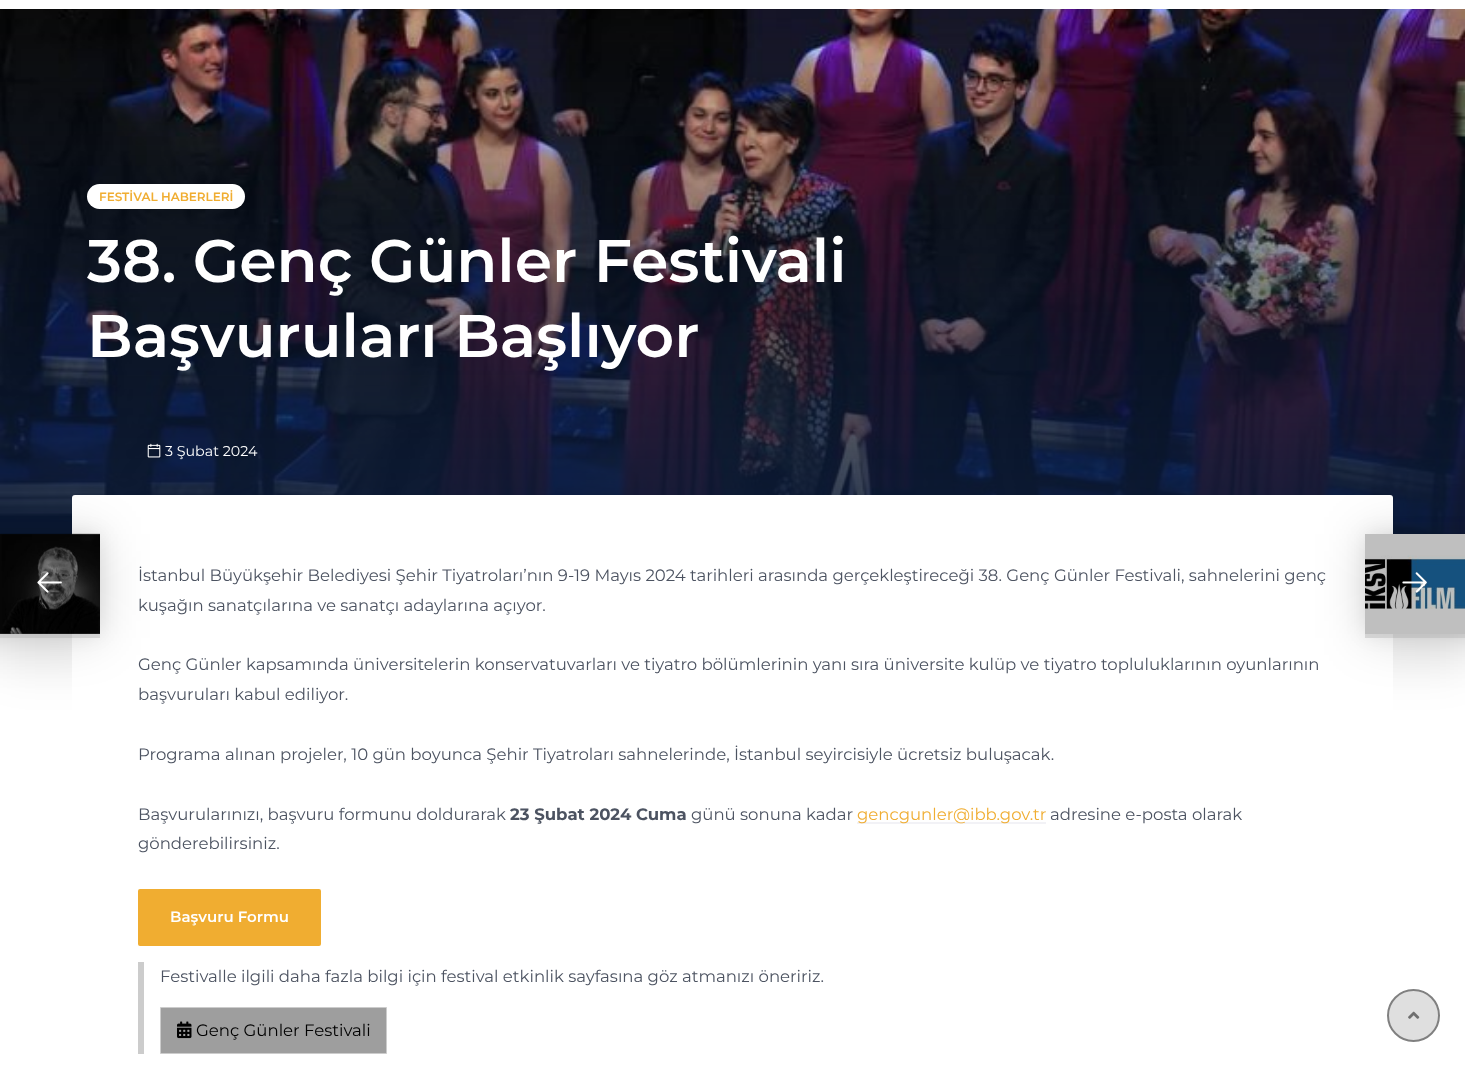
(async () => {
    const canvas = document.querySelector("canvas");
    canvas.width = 1465;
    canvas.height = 1067;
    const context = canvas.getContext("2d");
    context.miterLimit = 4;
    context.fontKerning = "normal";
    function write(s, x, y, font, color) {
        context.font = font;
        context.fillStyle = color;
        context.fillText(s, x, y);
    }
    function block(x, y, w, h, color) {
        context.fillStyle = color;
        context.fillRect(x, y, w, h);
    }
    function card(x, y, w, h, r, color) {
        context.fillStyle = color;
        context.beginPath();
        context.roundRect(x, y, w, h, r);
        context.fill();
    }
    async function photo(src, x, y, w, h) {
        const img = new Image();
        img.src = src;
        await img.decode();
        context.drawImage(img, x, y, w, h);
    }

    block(0, 0, 1465, 1067, "rgb(255, 255, 255)");
    context.fillStyle = "rgba(0, 0, 0, 0.06)";
    context.filter = "blur(20px)";
    context.beginPath();
    context.rect(0, 89, 1465, 586);
    context.fill();
    context.filter = "none";
    await photo("media/1.png", 0, 9, 1465, 526);
    card(87, 184, 158, 25, 12.5, "rgb(255, 255, 255)");
    write("FESTİVAL HABERLERİ", 99, 201, "600 12px Montserrat", "rgb(240, 173, 49)");
    write("38. Genç Günler Festivali", 87, 282, "600 60px Montserrat", "rgb(255, 255, 255)");
    write("Başvuruları Başlıyor", 87, 357, "600 60px Montserrat", "rgb(255, 255, 255)");
    await photo("media/2.png", 147, 443, 14, 15);
    write("3 Şubat 2024", 165, 456, "14.25px Montserrat", "rgb(255, 255, 255)");
    card(72, 495, 1321, 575, 3, "rgb(255, 255, 255)");
    context.save();
    context.beginPath();
    context.moveTo(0, 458);
    context.lineTo(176, 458);
    context.lineTo(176, 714);
    context.lineTo(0, 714);
    context.closePath();
    context.moveTo(-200, 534);
    context.lineTo(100, 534);
    context.lineTo(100, 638);
    context.lineTo(-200, 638);
    context.closePath();
    context.clip("evenodd");
    context.fillStyle = "rgba(0, 0, 0, 0.15)";
    context.filter = "blur(25px)";
    context.beginPath();
    context.rect(-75, 534, 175, 104);
    context.fill();
    context.filter = "none";
    context.restore();
    block(0, 634, 100, 4, "rgba(0, 0, 0, 0.15)");
    context.fillStyle = "rgba(0, 0, 0, 0.08)";
    context.filter = "blur(10px)";
    context.beginPath();
    context.rect(-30, 534, 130, 100);
    context.fill();
    context.filter = "none";
    await photo("media/3.png", 0, 533, 100, 101);
    block(0, 534, 100, 100, "rgba(0, 0, 0, 0.25)");
    await photo("media/4.png", 37, 572, 25, 21);
    context.save();
    context.beginPath();
    context.moveTo(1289, 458);
    context.lineTo(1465, 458);
    context.lineTo(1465, 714);
    context.lineTo(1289, 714);
    context.closePath();
    context.moveTo(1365, 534);
    context.lineTo(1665, 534);
    context.lineTo(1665, 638);
    context.lineTo(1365, 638);
    context.closePath();
    context.clip("evenodd");
    context.fillStyle = "rgba(0, 0, 0, 0.15)";
    context.filter = "blur(25px)";
    context.beginPath();
    context.rect(1365, 534, 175, 104);
    context.fill();
    context.filter = "none";
    context.restore();
    block(1365, 634, 100, 4, "rgba(0, 0, 0, 0.15)");
    context.fillStyle = "rgba(0, 0, 0, 0.08)";
    context.filter = "blur(10px)";
    context.beginPath();
    context.rect(1365, 534, 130, 100);
    context.fill();
    context.filter = "none";
    block(1365, 534, 100, 100, "rgb(255, 255, 255)");
    await photo("media/6.png", 1365, 555, 100, 54);
    block(1365, 534, 100, 100, "rgba(0, 0, 0, 0.25)");
    await photo("media/5.png", 1402, 572, 25, 21);
    write("İstanbul Büyükşehir Belediyesi Şehir Tiyatroları’nın 9-19 Mayıs 2024 tarihleri arasında gerçekleştireceği 38. Genç Günler Festivali, sahnelerini genç", 138, 581, "16.55px Montserrat", "rgb(76, 83, 97)");
    write("kuşağın sanatçılarına ve sanatçı adaylarına açıyor.", 138, 611, "16.55px Montserrat", "rgb(76, 83, 97)");
    write("Genç Günler kapsamında üniversitelerin konservatuvarları ve tiyatro bölümlerinin yanı sıra üniversite kulüp ve tiyatro topluluklarının oyunlarının", 138, 670, "16.55px Montserrat", "rgb(76, 83, 97)");
    write("başvuruları kabul ediliyor.", 138, 700, "16.55px Montserrat", "rgb(76, 83, 97)");
    write("Programa alınan projeler, 10 gün boyunca Şehir Tiyatroları sahnelerinde, İstanbul seyircisiyle ücretsiz buluşacak.", 138, 760, "16.55px Montserrat", "rgb(76, 83, 97)");
    write("Başvurularınızı, başvuru formunu doldurarak", 138, 820, "16.55px Montserrat", "rgb(76, 83, 97)");
    write("23 Şubat 2024 Cuma", 510, 820, "bold 16.55px Montserrat", "rgb(76, 83, 97)");
    write("günü sonuna kadar", 691, 820, "16.55px Montserrat", "rgb(76, 83, 97)");
    block(857, 822, 189, 2, "rgb(242, 242, 246)");
    write("gencgunler@ibb.gov.tr", 857, 820, "16.55px Montserrat", "rgb(240, 173, 49)");
    write("adresine e-posta olarak", 1050, 820, "16.55px Montserrat", "rgb(76, 83, 97)");
    write("gönderebilirsiniz.", 138, 849, "16.55px Montserrat", "rgb(76, 83, 97)");
    context.fillStyle = "rgb(240, 173, 49)";
    context.beginPath();
    context.roundRect(139, 890, 181, 55, 1);
    context.fill();
    context.strokeStyle = "rgb(240, 173, 49)";
    context.lineWidth = 2;
    context.stroke();
    write("Başvuru Formu", 170, 922, "600 15px Montserrat", "rgb(255, 255, 255)");
    block(138, 962, 6, 92, "rgb(204, 204, 204)");
    write("Festivalle ilgili daha fazla bilgi için festival etkinlik sayfasına göz atmanızı öneririz.", 160, 982, "16.55px Montserrat", "rgb(76, 83, 97)");
    context.fillStyle = "rgb(158, 158, 158)";
    context.beginPath();
    context.rect(160.5, 1007.5, 226, 46);
    context.fill();
    context.strokeStyle = "rgb(204, 204, 204)";
    context.lineWidth = 1;
    context.stroke();
    await photo("media/7.png", 177, 1021, 15, 18);
    write("Genç Günler Festivali", 196, 1036, "16.55px Montserrat", "rgb(0, 0, 0)");
    context.fillStyle = "rgb(223, 223, 223)";
    context.beginPath();
    context.arc(1413.5, 1015.5, 25.5, 0, Math.PI * 2);
    context.fill();
    context.strokeStyle = "rgb(128, 128, 128)";
    context.lineWidth = 2;
    context.stroke();
    await photo("media/8.png", 1408, 1011, 12, 8);
})();
